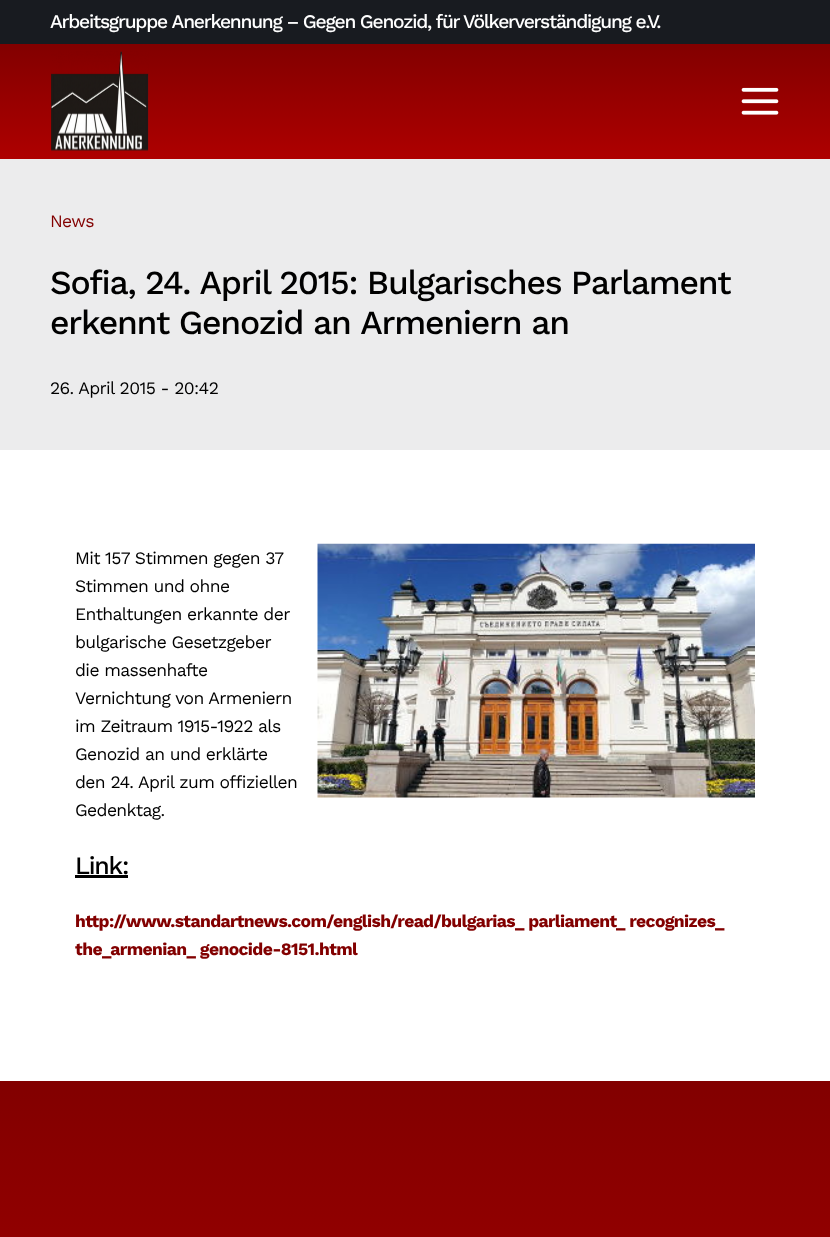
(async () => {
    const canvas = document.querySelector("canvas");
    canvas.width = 830;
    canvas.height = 1237;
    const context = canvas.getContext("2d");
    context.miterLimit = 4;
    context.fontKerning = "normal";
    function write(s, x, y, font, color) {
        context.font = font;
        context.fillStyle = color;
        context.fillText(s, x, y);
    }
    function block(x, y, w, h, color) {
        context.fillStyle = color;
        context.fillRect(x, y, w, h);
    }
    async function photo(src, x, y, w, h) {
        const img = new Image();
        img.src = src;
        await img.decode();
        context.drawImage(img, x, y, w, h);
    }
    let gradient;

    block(0, 0, 830, 1237, "rgb(255, 255, 255)");
    block(0, 0, 830, 44, "rgb(24, 27, 32)");
    context.letterSpacing = "-1.25px";
    context.wordSpacing = "-0.25px";
    write("Arbeitsgruppe Anerkennung – Gegen Genozid, für Völkerverständigung e.V.", 50, 28, "500 19.25px Work Sans", "rgb(255, 255, 255)");
    gradient = context.createLinearGradient(415, 44, 415, 159);
    gradient.addColorStop(0, "rgb(130, 0, 0)");
    gradient.addColorStop(1, "rgb(174, 0, 0)");
    context.fillStyle = gradient;
    context.fillRect(0, 44, 830, 115);
    await photo("media/1.png", 51, 51, 98, 100);
    await photo("media/2.png", 741, 87, 38, 28);
    block(0, 159, 830, 291, "rgb(236, 236, 237)");
    context.letterSpacing = "-0.62px";
    context.wordSpacing = "0px";
    write("News", 50, 227, "17.5px Work Sans", "rgb(130, 0, 0)");
    context.letterSpacing = "-1.25px";
    context.wordSpacing = "-0.25px";
    write("Sofia, 24. April 2015: Bulgarisches Parlament", 50, 294, "500 33.75px Work Sans", "rgb(0, 0, 0)");
    context.wordSpacing = "0px";
    write("erkennt Genozid an Armeniern an", 50, 334, "500 33.75px Work Sans", "rgb(0, 0, 0)");
    context.letterSpacing = "-0.62px";
    write("26. April 2015 - 20:42", 50, 394, "17.5px Work Sans", "rgb(0, 0, 0)");
    write("Mit 157 Stimmen gegen 37", 75, 564, "17.5px Work Sans", "rgb(0, 0, 0)");
    await photo("media/3.png", 317, 543, 438, 255);
    write("Stimmen und ohne", 75, 592, "17.5px Work Sans", "rgb(0, 0, 0)");
    write("Enthaltungen erkannte der", 75, 620, "17.5px Work Sans", "rgb(0, 0, 0)");
    write("bulgarische Gesetzgeber", 75, 648, "17.5px Work Sans", "rgb(0, 0, 0)");
    write("die massenhafte", 75, 676, "17.5px Work Sans", "rgb(0, 0, 0)");
    write("Vernichtung von Armeniern", 75, 704, "17.5px Work Sans", "rgb(0, 0, 0)");
    write("im Zeitraum 1915-1922 als", 75, 732, "17.5px Work Sans", "rgb(0, 0, 0)");
    write("Genozid an und erklärte", 75, 760, "17.5px Work Sans", "rgb(0, 0, 0)");
    write("den 24. April zum offiziellen", 75, 788, "17.5px Work Sans", "rgb(0, 0, 0)");
    write("Gedenktag.", 75, 816, "17.5px Work Sans", "rgb(0, 0, 0)");
    context.letterSpacing = "-1.25px";
    write("Link:", 75, 874, "500 25px Work Sans", "rgb(0, 0, 0)");
    block(75, 875, 53, 3, "rgb(0, 0, 0)");
    context.letterSpacing = "-0.62px";
    write("http://www.standartnews.com/english/read/bulgarias_ parliament_ recognizes_", 75, 927, "bold 17.5px Work Sans", "rgb(130, 0, 0)");
    write("the_armenian_ genocide-8151.html", 75, 955, "bold 17.5px Work Sans", "rgb(130, 0, 0)");
    gradient = context.createLinearGradient(415, 1081, 415, 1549);
    gradient.addColorStop(0, "rgb(130, 0, 0)");
    gradient.addColorStop(1, "rgb(174, 0, 0)");
    context.fillStyle = gradient;
    context.fillRect(0, 1081, 830, 156);
})();
